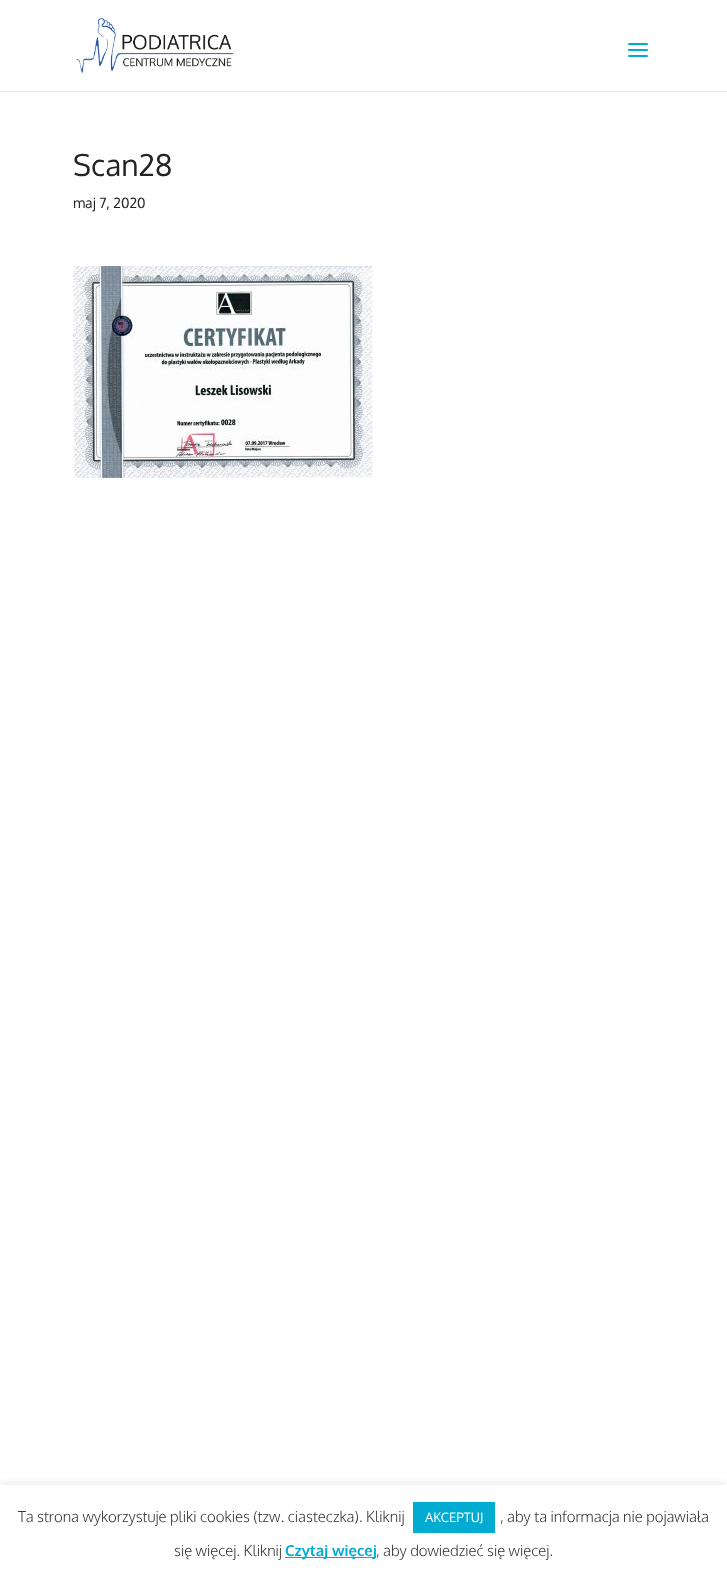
(async () => {
    const canvas = document.querySelector("canvas");
    canvas.width = 727;
    canvas.height = 1575;
    const context = canvas.getContext("2d");
    context.miterLimit = 4;
    context.fontKerning = "normal";
    function write(s, x, y, font, color) {
        context.font = font;
        context.fillStyle = color;
        context.fillText(s, x, y);
    }
    function block(x, y, w, h, color) {
        context.fillStyle = color;
        context.fillRect(x, y, w, h);
    }
    async function photo(src, x, y, w, h) {
        const img = new Image();
        img.src = src;
        await img.decode();
        context.drawImage(img, x, y, w, h);
    }

    block(0, 0, 727, 1575, "rgb(255, 255, 255)");
    block(0, 91, 727, 1, "rgb(230, 230, 230)");
    await photo("media/1.png", 76, 18, 157, 55);
    await photo("media/2.png", 628, 43, 20, 14);
    write("Scan28", 73, 176, "30px Oxygen", "rgb(35, 35, 35)");
    write("maj 7, 2020", 73, 208, "14px Oxygen", "rgb(35, 35, 35)");
    await photo("media/3.png", 73, 266, 300, 212);
    context.save();
    context.beginPath();
    context.rect(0, 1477, 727, 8);
    context.clip();
    context.fillStyle = "rgba(172, 171, 171, 0.3)";
    context.filter = "blur(5px)";
    context.beginPath();
    context.rect(0, 1484, 727, 90);
    context.fill();
    context.filter = "none";
    context.restore();
    write("Ta strona wykorzystuje pliki cookies (tzw. ciasteczka). Kliknij", 18, 1522, "300 15px Oxygen", "rgb(51, 51, 51)");
    block(413, 1502, 82, 31, "rgb(2, 171, 210)");
    write("AKCEPTUJ", 425, 1522, "13px Oxygen", "rgb(255, 255, 255)");
    write(", aby ta informacja nie pojawiała", 500, 1522, "300 15px Oxygen", "rgb(51, 51, 51)");
    write("się więcej. Kliknij", 174, 1556, "300 15px Oxygen", "rgb(51, 51, 51)");
    block(285, 1557, 91, 1, "rgb(2, 171, 210)");
    write("Czytaj więcej", 285, 1556, "bold 15px Oxygen", "rgb(2, 171, 210)");
    write(", aby dowiedzieć się więcej.", 376, 1556, "300 15px Oxygen", "rgb(51, 51, 51)");
})();
